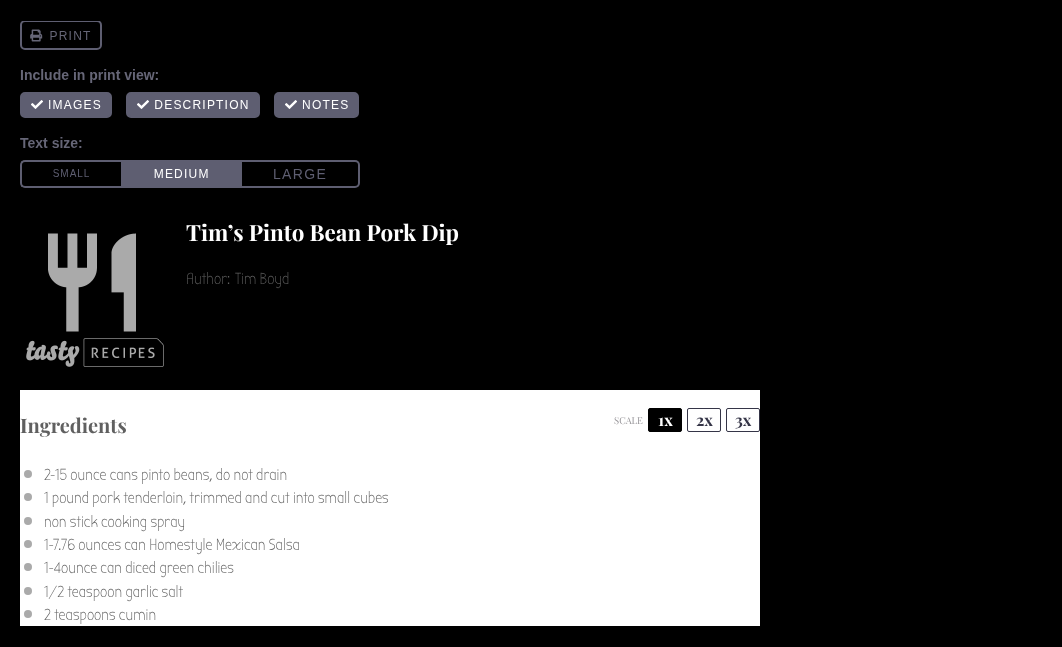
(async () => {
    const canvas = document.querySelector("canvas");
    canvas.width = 1062;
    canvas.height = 647;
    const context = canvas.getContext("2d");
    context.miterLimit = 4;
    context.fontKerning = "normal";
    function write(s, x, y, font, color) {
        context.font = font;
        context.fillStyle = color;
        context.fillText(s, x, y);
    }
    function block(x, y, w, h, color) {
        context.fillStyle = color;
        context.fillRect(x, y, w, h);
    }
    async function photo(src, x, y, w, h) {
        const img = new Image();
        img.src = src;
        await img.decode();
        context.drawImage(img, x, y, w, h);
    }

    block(0, 0, 1062, 647, "rgb(0, 0, 0)");
    await photo("media/1.png", 20, 21, 340, 167);
    await photo("media/2.png", 26, 233, 138, 134);
    write("Tim’s Pinto Bean Pork Dip", 186, 241, "bold 22.4px Playfair Display", "rgb(255, 255, 255)");
    write("Author:", 186, 284, "16px Bubbler One", "rgb(96, 96, 96)");
    write("Tim Boyd", 235, 284, "16px Bubbler One", "rgb(96, 96, 96)");
    block(20, 390, 740, 236, "rgb(255, 255, 255)");
    write("Ingredients", 20, 433, "bold 20px Playfair Display", "rgb(96, 96, 96)");
    write("SCALE", 614, 424, "9.5px Playfair Display", "rgb(151, 149, 153)");
    context.fillStyle = "rgb(0, 0, 0)";
    context.beginPath();
    context.roundRect(648.5, 408.5, 33, 23, 1.5);
    context.fill();
    context.strokeStyle = "rgb(0, 0, 0)";
    context.stroke();
    write("1x", 658, 426, "bold 16px Playfair Display", "rgb(255, 255, 255)");
    context.beginPath();
    context.roundRect(687.5, 408.5, 33, 23, 1.5);
    context.strokeStyle = "rgb(53, 53, 71)";
    context.stroke();
    write("2x", 696, 426, "bold 16px Playfair Display", "rgb(53, 53, 71)");
    context.beginPath();
    context.roundRect(726.5, 408.5, 33, 23, 1.5);
    context.stroke();
    write("3x", 735, 426, "bold 16px Playfair Display", "rgb(53, 53, 71)");
    context.fillStyle = "rgb(170, 170, 170)";
    context.beginPath();
    context.arc(28, 474, 4, 0, Math.PI * 2);
    context.fill();
    write("2", 44, 480, "16px Bubbler One", "rgb(96, 96, 96)");
    write("-", 50, 480, "16px Bubbler One", "rgb(96, 96, 96)");
    write("15 ounce cans pinto beans, do not drain", 55, 480, "16px Bubbler One", "rgb(96, 96, 96)");
    context.fillStyle = "rgb(170, 170, 170)";
    context.beginPath();
    context.arc(28, 497, 4, 0, Math.PI * 2);
    context.fill();
    write("1 pound pork tenderloin, trimmed and cut into small cubes", 44, 503, "16px Bubbler One", "rgb(96, 96, 96)");
    context.fillStyle = "rgb(170, 170, 170)";
    context.beginPath();
    context.arc(28, 521, 4, 0, Math.PI * 2);
    context.fill();
    write("non stick cooking spray", 44, 527, "16px Bubbler One", "rgb(96, 96, 96)");
    context.fillStyle = "rgb(170, 170, 170)";
    context.beginPath();
    context.arc(28, 544, 4, 0, Math.PI * 2);
    context.fill();
    write("1-", 44, 550, "16px Bubbler One", "rgb(96, 96, 96)");
    write("7.76 ounces can Homestyle Mexican Salsa", 53, 550, "16px Bubbler One", "rgb(96, 96, 96)");
    context.fillStyle = "rgb(170, 170, 170)";
    context.beginPath();
    context.arc(28, 567, 4, 0, Math.PI * 2);
    context.fill();
    write("1-4ounce can diced green chilies", 44, 573, "16px Bubbler One", "rgb(96, 96, 96)");
    context.fillStyle = "rgb(170, 170, 170)";
    context.beginPath();
    context.arc(28, 591, 4, 0, Math.PI * 2);
    context.fill();
    write("1/2 teaspoon garlic salt", 44, 597, "16px Bubbler One", "rgb(96, 96, 96)");
    context.fillStyle = "rgb(170, 170, 170)";
    context.beginPath();
    context.arc(28, 614, 4, 0, Math.PI * 2);
    context.fill();
    write("2 teaspoons cumin", 44, 620, "16px Bubbler One", "rgb(96, 96, 96)");
})();
